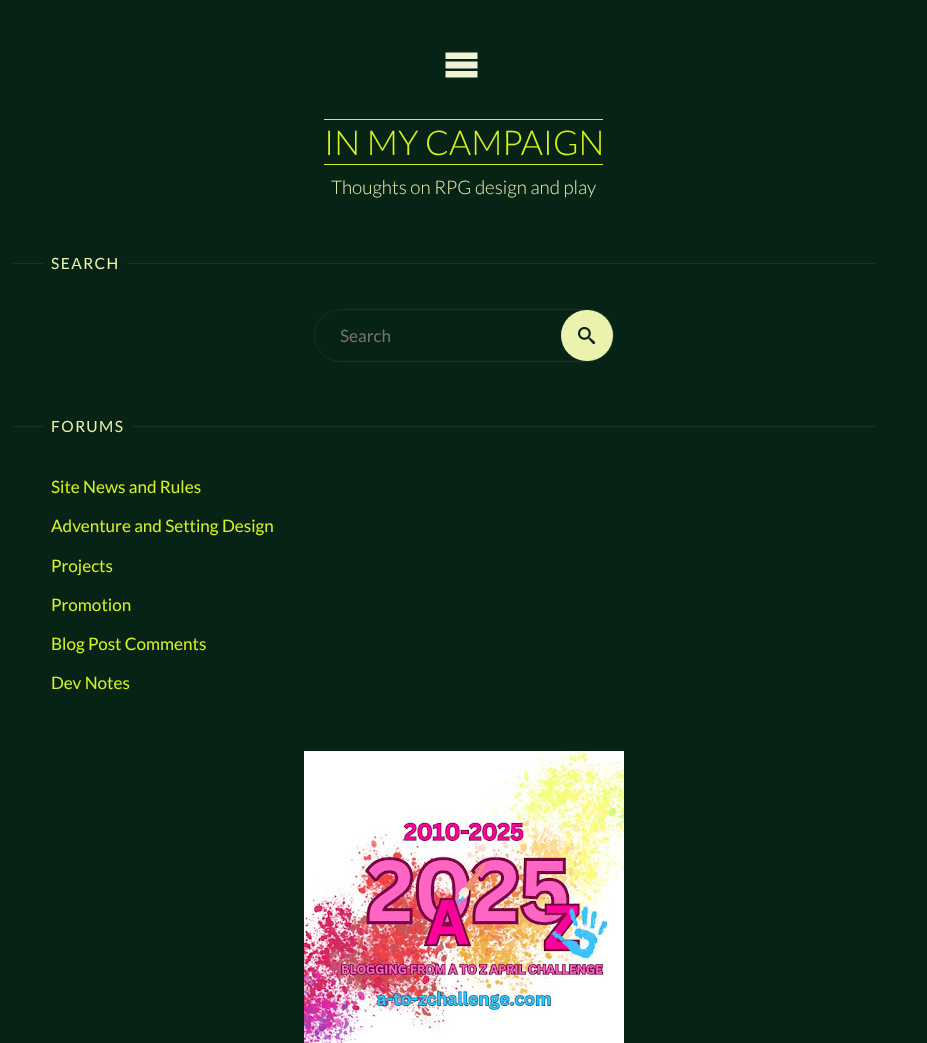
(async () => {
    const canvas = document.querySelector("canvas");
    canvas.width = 927;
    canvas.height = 1043;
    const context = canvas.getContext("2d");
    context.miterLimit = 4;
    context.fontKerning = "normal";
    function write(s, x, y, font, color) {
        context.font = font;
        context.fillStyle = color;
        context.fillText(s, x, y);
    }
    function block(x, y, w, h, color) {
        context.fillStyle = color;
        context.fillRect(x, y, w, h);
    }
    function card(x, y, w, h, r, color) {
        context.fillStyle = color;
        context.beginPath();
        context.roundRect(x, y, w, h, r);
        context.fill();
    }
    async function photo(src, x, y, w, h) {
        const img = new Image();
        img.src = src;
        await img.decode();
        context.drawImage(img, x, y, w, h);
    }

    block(0, 0, 927, 1043, "rgb(7, 35, 21)");
    context.fillStyle = "rgb(241, 242, 213)";
    context.beginPath();
    context.moveTo(445.5, 52.5);
    context.lineTo(477.5, 52.5);
    context.lineTo(477.5, 59);
    context.lineTo(445.5, 59);
    context.closePath();
    context.moveTo(445.5, 61.5);
    context.lineTo(477.5, 61.5);
    context.lineTo(477.5, 68.5);
    context.lineTo(445.5, 68.5);
    context.closePath();
    context.moveTo(445.5, 71);
    context.lineTo(477.5, 71);
    context.lineTo(477.5, 77.5);
    context.lineTo(445.5, 77.5);
    context.closePath();
    context.fill();
    block(324, 119, 279, 1, "rgb(214, 242, 31)");
    block(324, 164, 279, 1, "rgb(214, 242, 31)");
    write("IN MY CAMPAIGN", 324, 155, "300 34.25px Lato", "rgb(214, 242, 31)");
    write("Thoughts on RPG design and play", 331, 194, "300 18.75px Lato", "rgb(234, 242, 174)");
    block(13, 263, 863, 1, "rgb(24, 52, 38)");
    block(44, 263, 83, 1, "rgb(7, 35, 21)");
    context.letterSpacing = "1.5px";
    write("SEARCH", 51, 269, "15.5px Lato", "rgb(234, 242, 174)");
    context.beginPath();
    context.roundRect(314.5, 309.5, 299, 52, 26);
    context.strokeStyle = "rgb(24, 52, 38)";
    context.stroke();
    context.letterSpacing = "0px";
    write("Search", 340, 342, "17.1px Lato", "rgb(117, 117, 117)");
    card(561, 310, 52, 51, 25.5, "rgb(234, 242, 174)");
    await photo("media/1.png", 578, 327, 18, 18);
    block(13, 426, 863, 1, "rgb(24, 52, 38)");
    block(44, 426, 88, 1, "rgb(7, 35, 21)");
    context.letterSpacing = "1.5px";
    write("FORUMS", 51, 432, "15.5px Lato", "rgb(234, 242, 174)");
    context.letterSpacing = "0px";
    write("Site News and Rules", 51, 493, "17.1px Lato", "rgb(214, 242, 31)");
    write("Adventure and Setting Design", 51, 532, "17.1px Lato", "rgb(214, 242, 31)");
    write("Projects", 51, 572, "17.1px Lato", "rgb(214, 242, 31)");
    write("Promotion", 51, 611, "17.1px Lato", "rgb(214, 242, 31)");
    write("Blog Post Comments", 51, 650, "17.1px Lato", "rgb(214, 242, 31)");
    write("Dev Notes", 51, 689, "17.1px Lato", "rgb(214, 242, 31)");
    await photo("media/2.png", 304, 751, 320, 292);
})();
